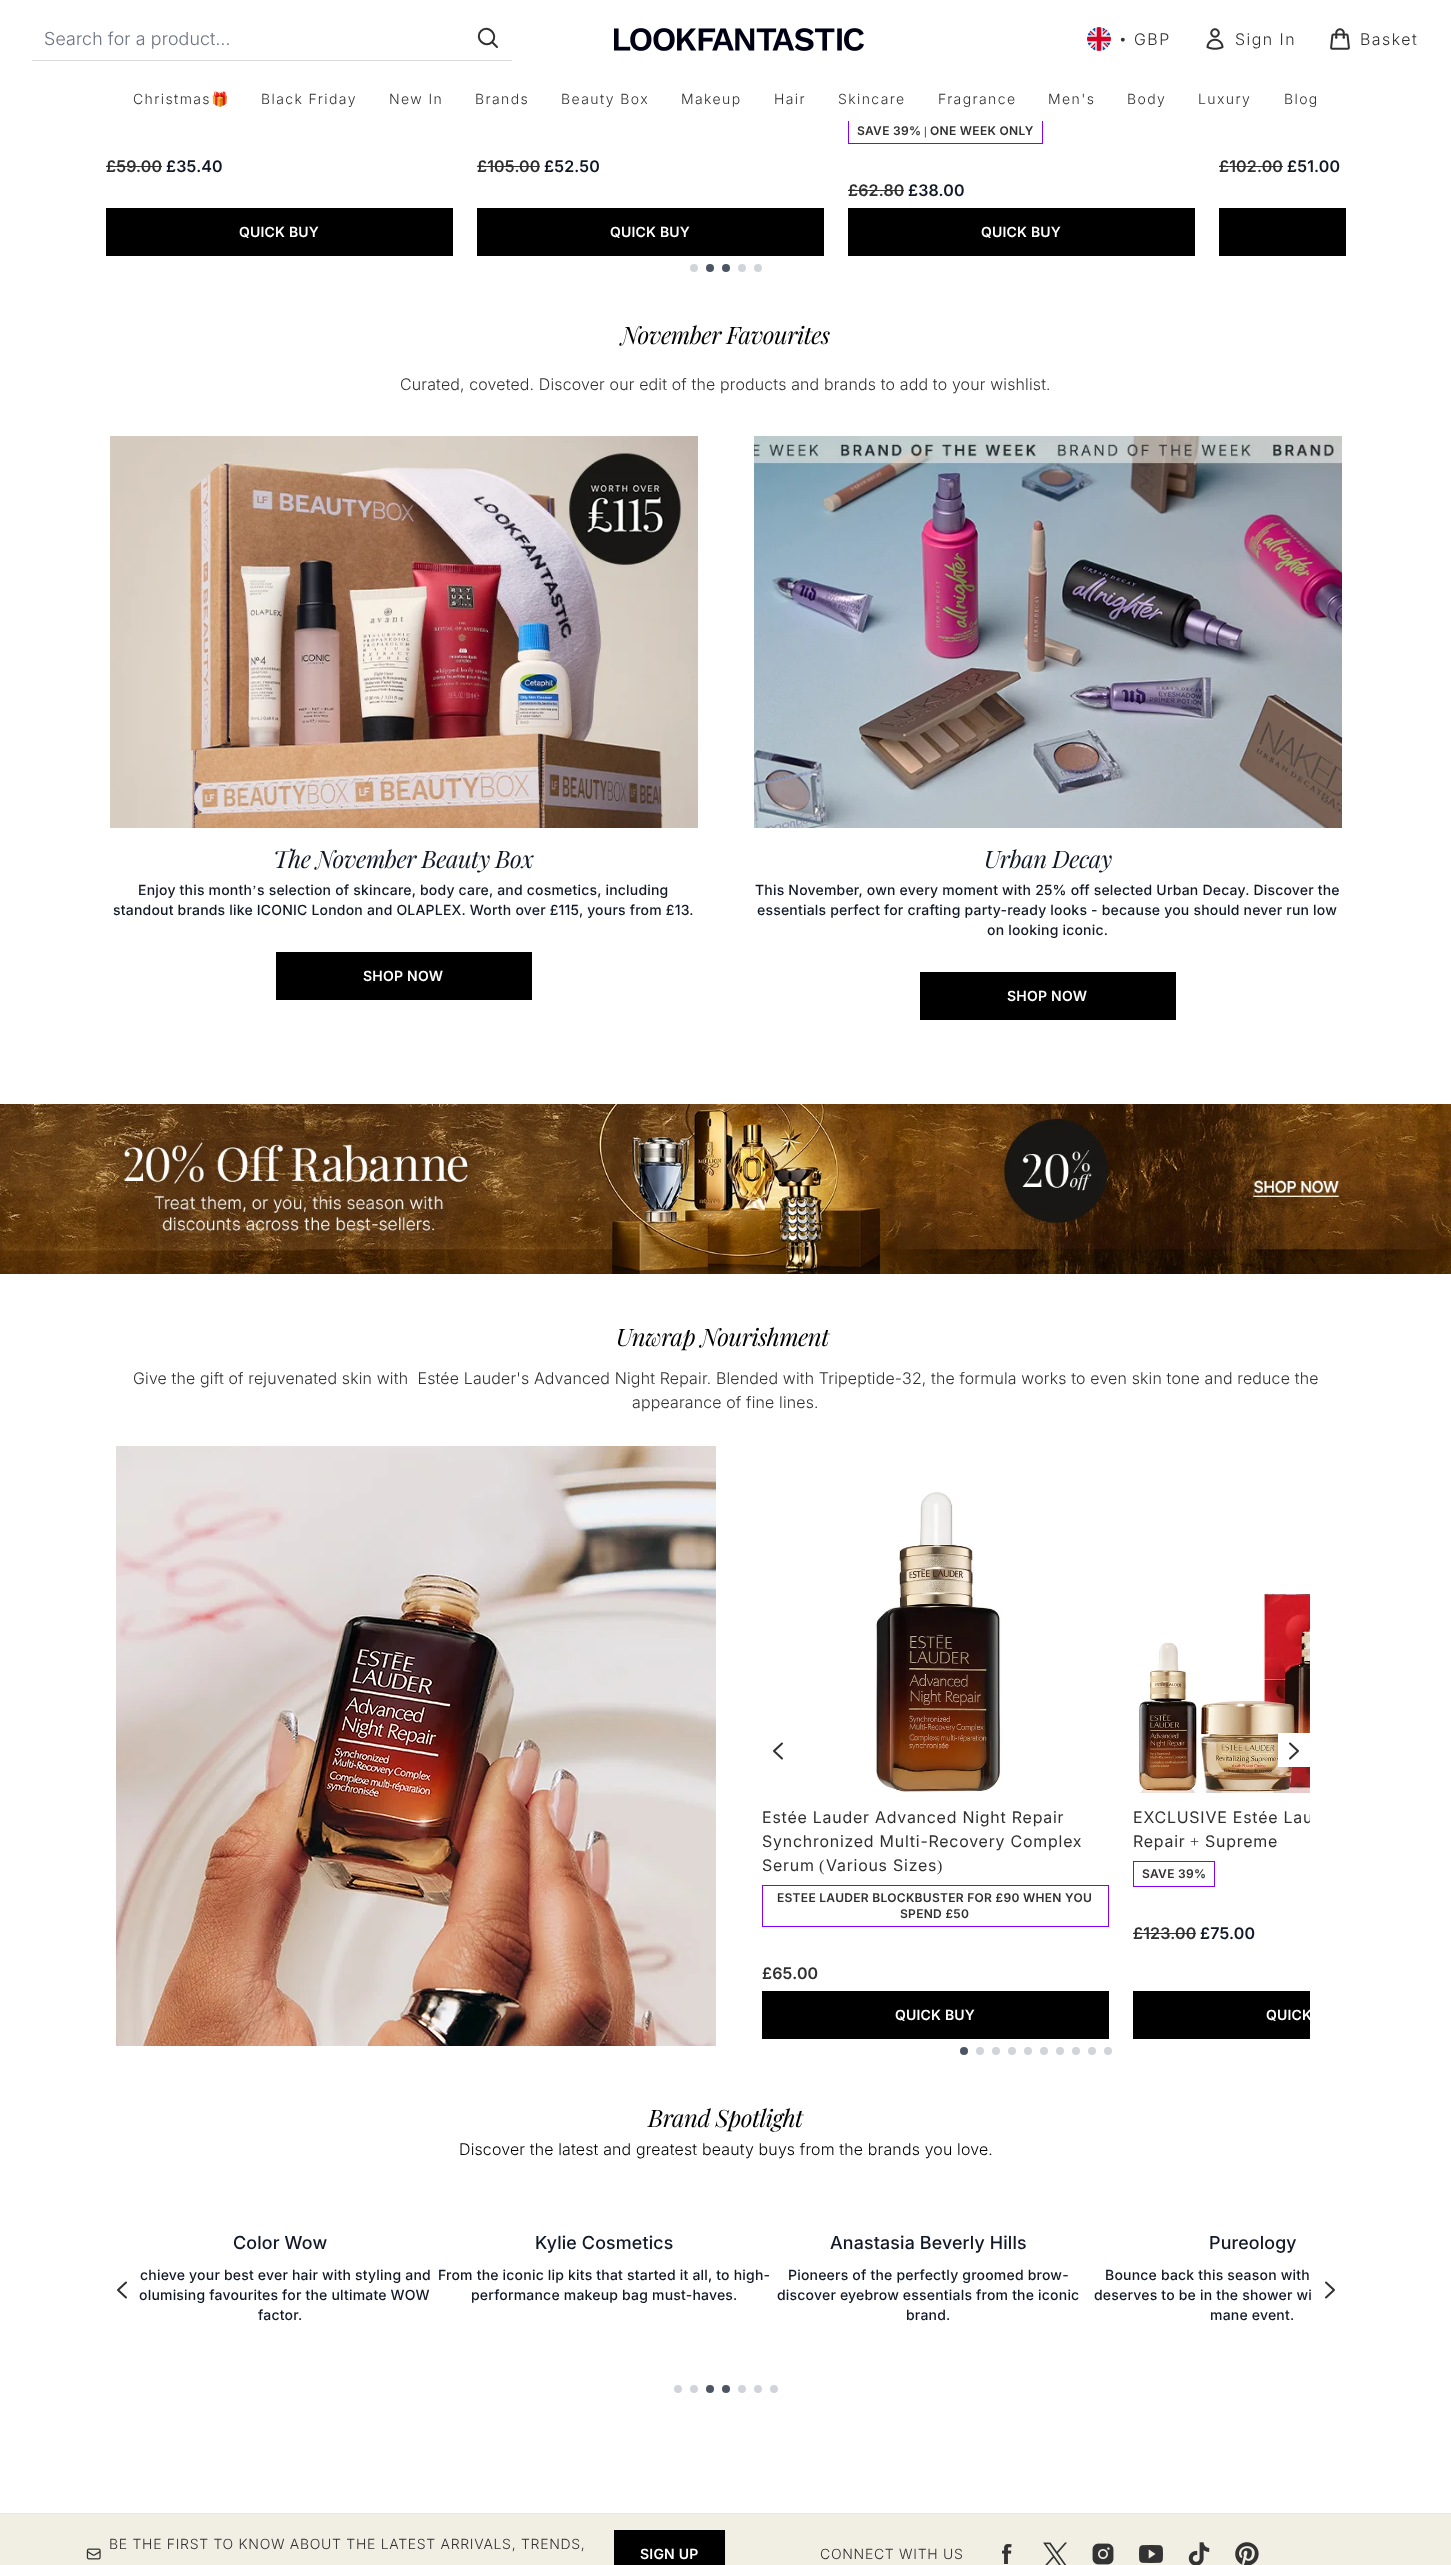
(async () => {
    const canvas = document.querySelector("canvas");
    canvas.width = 1451;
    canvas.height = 2565;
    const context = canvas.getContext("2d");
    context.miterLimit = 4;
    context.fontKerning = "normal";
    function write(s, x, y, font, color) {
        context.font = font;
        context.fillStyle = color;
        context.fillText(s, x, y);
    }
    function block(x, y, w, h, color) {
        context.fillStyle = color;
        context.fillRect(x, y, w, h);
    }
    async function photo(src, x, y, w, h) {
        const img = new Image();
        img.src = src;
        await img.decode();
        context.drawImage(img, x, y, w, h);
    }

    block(0, 0, 1451, 2565, "rgb(255, 255, 255)");
    block(32, 60, 480, 1, "rgb(219, 219, 219)");
    context.letterSpacing = "0.2px";
    write("Search for a product...", 44, 45, "300 18px 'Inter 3'", "rgb(107, 114, 128)");
    context.beginPath();
    context.moveTo(497, 47);
    context.lineTo(492, 42);
    context.moveTo(492, 42);
    context.bezierCurveTo(499, 35, 488, 24, 481, 31);
    context.bezierCurveTo(474, 38, 485, 49, 492, 42);
    context.closePath();
    context.strokeStyle = "rgb(48, 48, 48)";
    context.lineWidth = 2;
    context.lineCap = "round";
    context.lineJoin = "round";
    context.stroke();
    await photo("media/1.png", 614, 28, 250, 23);
    await photo("media/2.png", 1087, 27, 24, 24);
    write("•", 1120, 45, "16px Liberation Serif", "rgb(48, 48, 48)");
    context.letterSpacing = "1.5px";
    write("GBP", 1134, 45, "300 16px Inter", "rgb(48, 48, 48)");
    await photo("media/3.png", 1206, 28, 18, 22);
    write("Sign In", 1235, 45, "300 16px Inter", "rgb(48, 48, 48)");
    await photo("media/4.png", 1330, 28, 20, 22);
    write("Basket", 1360, 45, "300 16px Inter", "rgb(48, 48, 48)");
    context.strokeStyle = "rgb(129, 0, 255)";
    context.lineWidth = 1;
    context.lineJoin = "miter";
    context.strokeRect(848.5, 118.5, 194, 25);
    block(848, 118, 195, 3, "rgb(255, 255, 255)");
    context.letterSpacing = "1.4px";
    write("Christmas", 133, 104, "300 14px 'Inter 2'", "rgb(48, 48, 48)");
    write("🎁", 211, 104, "14px Noto Color Emoji", "rgb(48, 48, 48)");
    write("Black Friday", 261, 104, "300 14px 'Inter 2'", "rgb(48, 48, 48)");
    write("New In", 389, 104, "300 14px 'Inter 2'", "rgb(48, 48, 48)");
    write("Brands", 475, 104, "300 14px 'Inter 2'", "rgb(48, 48, 48)");
    write("Beauty Box", 561, 104, "300 14px 'Inter 2'", "rgb(48, 48, 48)");
    write("Makeup", 681, 104, "300 14px 'Inter 2'", "rgb(48, 48, 48)");
    write("Hair", 774, 104, "300 14px 'Inter 2'", "rgb(48, 48, 48)");
    write("Skincare", 838, 104, "300 14px 'Inter 2'", "rgb(48, 48, 48)");
    write("Fragrance", 938, 104, "300 14px 'Inter 2'", "rgb(48, 48, 48)");
    write("Men's", 1048, 104, "300 14px 'Inter 2'", "rgb(48, 48, 48)");
    write("Body", 1127, 104, "300 14px 'Inter 2'", "rgb(48, 48, 48)");
    write("Luxury", 1198, 104, "300 14px 'Inter 2'", "rgb(48, 48, 48)");
    write("Blog", 1284, 104, "300 14px 'Inter 2'", "rgb(48, 48, 48)");
    context.letterSpacing = "0.2px";
    write("£59.00", 106, 172, "600 16px 'Inter 2'", "rgb(48, 48, 48)");
    block(106, 166, 56, 1, "rgb(48, 48, 48)");
    write("£35.40", 166, 172, "600 16px 'Inter 2'", "rgb(17, 24, 39)");
    block(106, 208, 347, 48, "rgb(0, 0, 0)");
    write("QUICK BUY", 239, 237, "600 14px Inter", "rgb(255, 255, 255)");
    write("£105.00", 477, 172, "600 16px 'Inter 2'", "rgb(48, 48, 48)");
    block(477, 166, 63, 1, "rgb(48, 48, 48)");
    write("£52.50", 544, 172, "600 16px 'Inter 2'", "rgb(17, 24, 39)");
    block(477, 208, 347, 48, "rgb(0, 0, 0)");
    write("QUICK BUY", 610, 237, "600 14px Inter", "rgb(255, 255, 255)");
    context.letterSpacing = "0.3px";
    write("SAVE 39%", 857, 135, "600 12px Inter", "rgb(48, 48, 48)");
    write("|", 924, 135, "bold 12px Liberation Serif", "rgb(48, 48, 48)");
    write("ONE WEEK ONLY", 930, 135, "600 12px Inter", "rgb(48, 48, 48)");
    context.letterSpacing = "0.2px";
    write("£62.80", 848, 196, "600 16px 'Inter 2'", "rgb(48, 48, 48)");
    block(848, 190, 56, 1, "rgb(48, 48, 48)");
    write("£38.00", 908, 196, "600 16px 'Inter 2'", "rgb(17, 24, 39)");
    block(848, 208, 347, 48, "rgb(0, 0, 0)");
    write("QUICK BUY", 981, 237, "600 14px Inter", "rgb(255, 255, 255)");
    write("£102.00", 1219, 172, "600 16px 'Inter 2'", "rgb(48, 48, 48)");
    block(1219, 166, 64, 1, "rgb(48, 48, 48)");
    write("£51.00", 1287, 172, "600 16px 'Inter 2'", "rgb(17, 24, 39)");
    block(1219, 208, 127, 48, "rgb(0, 0, 0)");
    context.fillStyle = "rgb(209, 213, 219)";
    context.beginPath();
    context.arc(694, 268, 4, 0, Math.PI * 2);
    context.fill();
    context.fillStyle = "rgb(75, 85, 99)";
    context.beginPath();
    context.arc(710, 268, 4, 0, Math.PI * 2);
    context.fill();
    context.beginPath();
    context.arc(726, 268, 4, 0, Math.PI * 2);
    context.fill();
    context.fillStyle = "rgb(209, 213, 219)";
    context.beginPath();
    context.arc(742, 268, 4, 0, Math.PI * 2);
    context.fill();
    context.beginPath();
    context.arc(758, 268, 4, 0, Math.PI * 2);
    context.fill();
    context.letterSpacing = "-0.5px";
    write("November Favourites", 621, 344, "italic 24px Playfair Display", "rgb(0, 0, 0)");
    context.letterSpacing = "0.2px";
    write("Curated, coveted. Discover our edit of the products and brands to add to your wishlist.", 400, 390, "300 16px Inter", "rgb(48, 48, 48)");
    await photo("media/5.png", 110, 436, 588, 392);
    context.letterSpacing = "-0.5px";
    write("The November Beauty Box", 273, 868, "italic 24px Playfair Display", "rgb(17, 24, 39)");
    context.letterSpacing = "0.2px";
    write("Enjoy this month", 138, 895, "500 14px Inter", "rgb(17, 24, 39)");
    write("’", 252, 895, "14px Liberation Serif", "rgb(17, 24, 39)");
    write("s selection of skincare, body care, and cosmetics, including", 257, 895, "500 14px Inter", "rgb(17, 24, 39)");
    write("standout brands like ICONIC London and OLAPLEX. Worth over £115, yours from £13.", 113, 915, "500 14px Inter", "rgb(17, 24, 39)");
    block(276, 952, 256, 48, "rgb(0, 0, 0)");
    context.letterSpacing = "0.25px";
    write("SHOP NOW", 363, 981, "600 14px Inter", "rgb(255, 255, 255)");
    await photo("media/6.png", 754, 436, 588, 392);
    context.letterSpacing = "-0.5px";
    write("Urban Decay", 984, 868, "italic 24px Playfair Display", "rgb(17, 24, 39)");
    context.letterSpacing = "0.2px";
    write("This November, own every moment with 25% off selected Urban Decay. Discover the", 755, 895, "500 14px Inter", "rgb(17, 24, 39)");
    write("essentials perfect for crafting party-ready looks - because you should never run low", 757, 915, "500 14px Inter", "rgb(17, 24, 39)");
    write("on looking iconic.", 987, 935, "500 14px Inter", "rgb(17, 24, 39)");
    block(920, 972, 256, 48, "rgb(0, 0, 0)");
    context.letterSpacing = "0.25px";
    write("SHOP NOW", 1007, 1001, "600 14px Inter", "rgb(255, 255, 255)");
    await photo("media/7.png", 0, 1104, 1451, 170);
    context.letterSpacing = "-0.5px";
    write("Unwrap Nourishment", 616, 1346, "italic 24px Playfair Display", "rgb(0, 0, 0)");
    context.letterSpacing = "0.2px";
    write("Give the gift of rejuvenated skin with  Estée Lauder's Advanced Night Repair. Blended with Tripeptide-32, the formula works to even skin tone and reduce the", 133, 1384, "300 16px Inter", "rgb(48, 48, 48)");
    write("appearance of fine lines.", 632, 1408, "300 16px Inter", "rgb(48, 48, 48)");
    await photo("media/8.png", 116, 1446, 600, 600);
    context.beginPath();
    context.moveTo(782, 1758.5);
    context.lineTo(774, 1751);
    context.lineTo(782, 1743.5);
    context.strokeStyle = "rgb(48, 48, 48)";
    context.lineWidth = 2;
    context.lineJoin = "round";
    context.stroke();
    await photo("media/10.png", 1137, 1593, 173, 200);
    block(1278, 1733, 32, 34, "rgb(255, 255, 255)");
    context.beginPath();
    context.moveTo(1290, 1743.5);
    context.lineTo(1298, 1751);
    context.lineTo(1290, 1758.5);
    context.stroke();
    await photo("media/9.png", 875, 1492, 127, 301);
    context.letterSpacing = "0.8px";
    write("Estée Lauder Advanced Night Repair", 762, 1823, "16px Inter", "rgb(48, 48, 48)");
    write("Synchronized Multi-Recovery Complex", 762, 1847, "16px Inter", "rgb(48, 48, 48)");
    write("Serum", 762, 1871, "16px Inter", "rgb(48, 48, 48)");
    write("(", 819, 1871, "16px Liberation Serif", "rgb(48, 48, 48)");
    write("Various Sizes", 826, 1871, "16px Inter", "rgb(48, 48, 48)");
    write(")", 937, 1871, "16px Liberation Serif", "rgb(48, 48, 48)");
    context.strokeStyle = "rgb(129, 0, 255)";
    context.lineWidth = 1;
    context.lineJoin = "miter";
    context.strokeRect(762.5, 1885.5, 346, 41);
    context.letterSpacing = "0.3px";
    write("ESTEE LAUDER BLOCKBUSTER FOR £90 WHEN YOU", 777, 1902, "600 12px Inter", "rgb(48, 48, 48)");
    write("SPEND £50", 900, 1918, "600 12px Inter", "rgb(48, 48, 48)");
    context.letterSpacing = "0.2px";
    write("£65.00", 762, 1979, "600 16px 'Inter 2'", "rgb(48, 48, 48)");
    block(762, 1991, 347, 48, "rgb(0, 0, 0)");
    write("QUICK BUY", 895, 2020, "600 14px Inter", "rgb(255, 255, 255)");
    context.save();
    context.beginPath();
    context.rect(762, 1446, 548, 593);
    context.clip();
    context.letterSpacing = "0.8px";
    write("EXCLUSIVE Estée Lau", 1133, 1823, "16px Inter", "rgb(48, 48, 48)");
    context.restore();
    context.letterSpacing = "0.8px";
    write("Repair", 1133, 1847, "16px Inter", "rgb(48, 48, 48)");
    write("+", 1190, 1847, "16px Liberation Serif", "rgb(48, 48, 48)");
    write("Supreme", 1205, 1847, "16px Inter", "rgb(48, 48, 48)");
    context.strokeRect(1133.5, 1861.5, 81, 25);
    context.letterSpacing = "0.3px";
    write("SAVE 39%", 1142, 1878, "600 12px Inter", "rgb(48, 48, 48)");
    context.letterSpacing = "0.2px";
    write("£123.00", 1133, 1939, "600 16px 'Inter 2'", "rgb(48, 48, 48)");
    block(1133, 1933, 63, 1, "rgb(48, 48, 48)");
    write("£75.00", 1200, 1939, "600 16px 'Inter 2'", "rgb(17, 24, 39)");
    block(1133, 1991, 177, 48, "rgb(0, 0, 0)");
    context.save();
    context.beginPath();
    context.rect(762, 1446, 548, 593);
    context.clip();
    write("QUICK", 1266, 2020, "600 14px Inter", "rgb(255, 255, 255)");
    context.restore();
    context.fillStyle = "rgb(75, 85, 99)";
    context.beginPath();
    context.arc(964, 2051, 4, 0, Math.PI * 2);
    context.fill();
    context.fillStyle = "rgb(209, 213, 219)";
    context.beginPath();
    context.arc(980, 2051, 4, 0, Math.PI * 2);
    context.fill();
    context.beginPath();
    context.arc(996, 2051, 4, 0, Math.PI * 2);
    context.fill();
    context.beginPath();
    context.arc(1012, 2051, 4, 0, Math.PI * 2);
    context.fill();
    context.beginPath();
    context.arc(1028, 2051, 4, 0, Math.PI * 2);
    context.fill();
    context.beginPath();
    context.arc(1044, 2051, 4, 0, Math.PI * 2);
    context.fill();
    context.beginPath();
    context.arc(1060, 2051, 4, 0, Math.PI * 2);
    context.fill();
    context.beginPath();
    context.arc(1076, 2051, 4, 0, Math.PI * 2);
    context.fill();
    context.beginPath();
    context.arc(1092, 2051, 4, 0, Math.PI * 2);
    context.fill();
    context.beginPath();
    context.arc(1108, 2051, 4, 0, Math.PI * 2);
    context.fill();
    context.letterSpacing = "-0.5px";
    write("Brand Spotlight", 648, 2127, "italic 24px Playfair Display", "rgb(0, 0, 0)");
    context.letterSpacing = "0.2px";
    write("Discover the latest and greatest beauty buys from the brands you love.", 459, 2155, "300 16px Inter", "rgb(0, 0, 0)");
    context.beginPath();
    context.moveTo(126, 2297.5);
    context.lineTo(118, 2290);
    context.lineTo(126, 2282.5);
    context.strokeStyle = "rgb(48, 48, 48)";
    context.lineWidth = 2;
    context.lineJoin = "round";
    context.stroke();
    write("Color Wow", 233, 2249, "500 18px 'Inter 2'", "rgb(17, 24, 39)");
    write("chieve your best ever hair with styling and", 140, 2280, "500 14px Inter", "rgb(17, 24, 39)");
    write("olumising favourites for the ultimate WOW", 139, 2300, "500 14px Inter", "rgb(17, 24, 39)");
    write("factor.", 258, 2320, "500 14px Inter", "rgb(17, 24, 39)");
    write("Kylie Cosmetics", 535, 2249, "500 18px 'Inter 2'", "rgb(17, 24, 39)");
    write("From the iconic lip kits that started it all, to high-", 438, 2280, "500 14px Inter", "rgb(17, 24, 39)");
    write("performance makeup bag must-haves.", 471, 2300, "500 14px Inter", "rgb(17, 24, 39)");
    write("Anastasia Beverly Hills", 830, 2249, "500 18px 'Inter 2'", "rgb(17, 24, 39)");
    write("Pioneers of the perfectly groomed brow-", 788, 2280, "500 14px Inter", "rgb(17, 24, 39)");
    write("discover eyebrow essentials from the iconic", 777, 2300, "500 14px Inter", "rgb(17, 24, 39)");
    write("brand.", 906, 2320, "500 14px Inter", "rgb(17, 24, 39)");
    write("Pureology", 1209, 2249, "500 18px 'Inter 2'", "rgb(17, 24, 39)");
    write("Bounce back this season with", 1105, 2280, "500 14px Inter", "rgb(17, 24, 39)");
    write("deserves to be in the shower wi", 1094, 2300, "500 14px Inter", "rgb(17, 24, 39)");
    write("mane event.", 1210, 2320, "500 14px Inter", "rgb(17, 24, 39)");
    context.beginPath();
    context.moveTo(1326, 2282.5);
    context.lineTo(1334, 2290);
    context.lineTo(1326, 2297.5);
    context.stroke();
    context.fillStyle = "rgb(209, 213, 219)";
    context.beginPath();
    context.arc(678, 2389, 4, 0, Math.PI * 2);
    context.fill();
    context.beginPath();
    context.arc(694, 2389, 4, 0, Math.PI * 2);
    context.fill();
    context.fillStyle = "rgb(75, 85, 99)";
    context.beginPath();
    context.arc(710, 2389, 4, 0, Math.PI * 2);
    context.fill();
    context.beginPath();
    context.arc(726, 2389, 4, 0, Math.PI * 2);
    context.fill();
    context.fillStyle = "rgb(209, 213, 219)";
    context.beginPath();
    context.arc(742, 2389, 4, 0, Math.PI * 2);
    context.fill();
    context.beginPath();
    context.arc(758, 2389, 4, 0, Math.PI * 2);
    context.fill();
    context.beginPath();
    context.arc(774, 2389, 4, 0, Math.PI * 2);
    context.fill();
    block(0, 2514, 1451, 51, "rgb(241, 238, 228)");
    block(0, 2513, 1451, 1, "rgb(229, 231, 235)");
    block(725, 2530, 1, 35, "rgb(229, 231, 235)");
    context.letterSpacing = "0.7px";
    write("BE THE FIRST TO KNOW ABOUT THE LATEST ARRIVALS, TRENDS,", 109, 2549, "300 14px 'Inter 2'", "rgb(48, 48, 48)");
    await photo("media/11.png", 86, 2548, 15, 12);
    block(614, 2530, 111, 35, "rgb(0, 0, 0)");
    context.letterSpacing = "0.2px";
    write("SIGN UP", 640, 2559, "600 14px Inter", "rgb(255, 255, 255)");
    context.letterSpacing = "0.7px";
    write("CONNECT WITH US", 820, 2559, "300 14px 'Inter 2'", "rgb(48, 48, 48)");
    await photo("media/12.png", 1002, 2544, 10, 20);
    await photo("media/13.png", 1043, 2542, 24, 23);
    await photo("media/14.png", 1092, 2543, 22, 22);
    await photo("media/15.png", 1139, 2545, 24, 18);
    await photo("media/16.png", 1188, 2542, 22, 23);
    await photo("media/17.png", 1235, 2542, 24, 23);
})();
